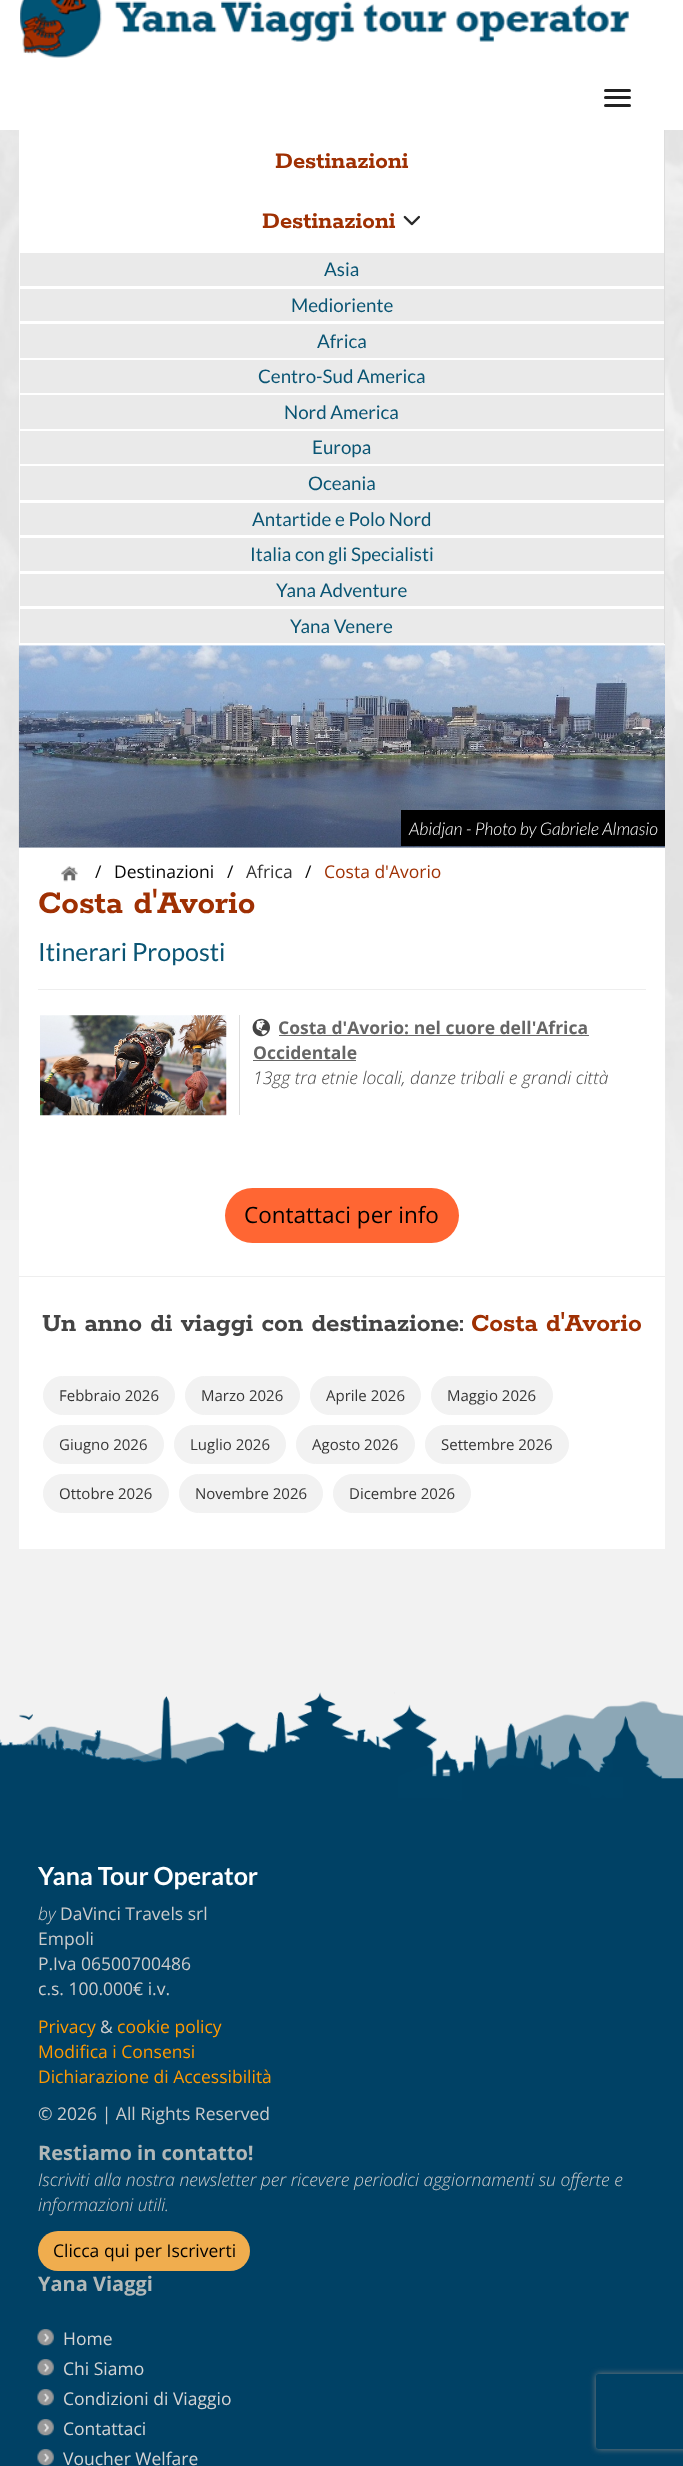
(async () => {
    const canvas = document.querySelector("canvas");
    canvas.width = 683;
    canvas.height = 2466;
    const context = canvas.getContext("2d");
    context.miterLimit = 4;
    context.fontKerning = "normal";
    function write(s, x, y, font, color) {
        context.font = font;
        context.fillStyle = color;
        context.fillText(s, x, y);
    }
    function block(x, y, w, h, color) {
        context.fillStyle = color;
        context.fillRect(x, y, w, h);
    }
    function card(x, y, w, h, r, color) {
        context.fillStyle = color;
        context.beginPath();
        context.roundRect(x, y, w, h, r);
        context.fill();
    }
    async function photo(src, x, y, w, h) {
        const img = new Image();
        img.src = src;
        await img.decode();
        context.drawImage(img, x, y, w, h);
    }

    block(0, 0, 683, 2466, "rgb(242, 242, 242)");
    await photo("media/1.png", 0, 130, 683, 1090);
    block(0, 0, 683, 130, "rgb(255, 255, 255)");
    await photo("media/2.png", 20, 0, 609, 58);
    card(604, 89, 27, 3, 1.5, "rgb(34, 34, 34)");
    card(604, 96, 27, 3, 1.5, "rgb(34, 34, 34)");
    card(604, 104, 27, 3, 1.5, "rgb(34, 34, 34)");
    block(19, 130, 645, 514, "rgb(255, 255, 255)");
    block(664, 130, 1, 515, "rgb(221, 221, 221)");
    block(19, 644, 646, 1, "rgb(255, 255, 255)");
    write("Destinazioni", 275, 168, "600 25px Rokkitt", "rgb(159, 48, 3)");
    write("Destinazioni", 262, 228, "600 25px Rokkitt", "rgb(159, 48, 3)");
    await photo("media/3.png", 403, 215, 17, 11);
    block(20, 253, 644, 33, "rgb(234, 234, 234)");
    write("Asia", 324, 276, "18.75px Lato", "rgb(10, 85, 116)");
    block(20, 289, 644, 32, "rgb(234, 234, 234)");
    write("Medioriente", 291, 312, "18.75px Lato", "rgb(10, 85, 116)");
    block(20, 324, 644, 34, "rgb(234, 234, 234)");
    write("Africa", 317, 348, "18.75px Lato", "rgb(10, 85, 116)");
    block(20, 360, 644, 33, "rgb(234, 234, 234)");
    write("Centro-Sud America", 258, 383, "18.75px Lato", "rgb(10, 85, 116)");
    block(20, 395, 644, 34, "rgb(234, 234, 234)");
    write("Nord America", 284, 419, "18.75px Lato", "rgb(10, 85, 116)");
    block(20, 431, 644, 33, "rgb(234, 234, 234)");
    write("Europa", 312, 454, "18.75px Lato", "rgb(10, 85, 116)");
    block(20, 466, 644, 34, "rgb(234, 234, 234)");
    write("Oceania", 308, 490, "18.75px Lato", "rgb(10, 85, 116)");
    block(20, 503, 644, 32, "rgb(234, 234, 234)");
    write("Antartide e Polo Nord", 252, 526, "18.75px Lato", "rgb(10, 85, 116)");
    block(20, 538, 644, 33, "rgb(234, 234, 234)");
    write("Italia con gli Specialisti", 250, 561, "18.75px Lato", "rgb(10, 85, 116)");
    block(20, 574, 644, 32, "rgb(234, 234, 234)");
    write("Yana Adventure", 276, 597, "18.75px Lato", "rgb(10, 85, 116)");
    block(20, 609, 644, 34, "rgb(234, 234, 234)");
    write("Yana Venere", 290, 633, "18.75px Lato", "rgb(10, 85, 116)");
    block(19, 645, 646, 904, "rgb(255, 255, 255)");
    await photo("media/4.png", 18, 645, 647, 203);
    block(401, 810, 264, 36, "rgb(0, 0, 0)");
    write("Abidjan - Photo by Gabriele Almasio", 409, 835, "italic 300 17.5px Lato", "rgb(255, 255, 255)");
    await photo("media/5.png", 61, 866, 17, 16);
    write("/", 95, 878, "17.5px Open Sans", "rgb(6, 6, 6)");
    write("Destinazioni", 114, 878, "17.5px Open Sans", "rgb(6, 6, 6)");
    write("/", 227, 878, "17.5px Open Sans", "rgb(6, 6, 6)");
    write("Africa", 246, 878, "17.5px Open Sans", "rgb(53, 53, 53)");
    write("/", 305, 878, "17.5px Open Sans", "rgb(6, 6, 6)");
    write("Costa d'Avorio", 324, 878, "17.5px Open Sans", "rgb(159, 48, 3)");
    write("Costa d'Avorio", 38, 913, "600 35px Rokkitt", "rgb(159, 48, 3)");
    write("Itinerari Proposti", 38, 961, "25px Lato", "rgb(10, 85, 116)");
    block(38, 989, 608, 1, "rgb(238, 238, 238)");
    block(239, 1015, 1, 100, "rgb(221, 221, 221)");
    await photo("media/6.png", 40, 1015, 187, 101);
    await photo("media/7.png", 252, 1018, 18, 19);
    write("Costa d'Avorio: nel cuore dell'Africa", 278, 1034, "bold 17.5px Open Sans", "rgb(102, 102, 102)");
    block(279, 1035, 310, 1, "rgb(102, 102, 102)");
    write("Occidentale", 253, 1059, "bold 17.5px Open Sans", "rgb(102, 102, 102)");
    block(253, 1060, 103, 1, "rgb(102, 102, 102)");
    write("13gg tra etnie locali, danze tribali e grandi città", 253, 1084, "italic 300 17.5px Open Sans", "rgb(68, 68, 68)");
    card(225, 1188, 234, 55, 27.5, "rgb(255, 102, 51)");
    write("Contattaci per info", 244, 1223, "22.5px Open Sans", "rgb(0, 0, 0)");
    block(19, 1276, 646, 1, "rgb(238, 238, 238)");
    write("Un anno di viaggi con destinazione:", 42, 1331, "600 27.5px Rokkitt", "rgb(68, 68, 68)");
    write("Costa d'Avorio", 471, 1331, "600 27.5px Rokkitt", "rgb(159, 48, 3)");
    context.fillStyle = "rgb(242, 242, 242)";
    context.beginPath();
    context.roundRect(43.5, 1376.5, 131, 38, 19);
    context.fill();
    context.strokeStyle = "rgb(242, 242, 242)";
    context.stroke();
    write("Febbraio 2026", 59, 1401, "15px Open Sans", "rgb(53, 53, 53)");
    context.fillStyle = "rgb(242, 242, 242)";
    context.beginPath();
    context.roundRect(185.5, 1376.5, 114, 38, 19);
    context.fill();
    context.stroke();
    write("Marzo 2026", 201, 1401, "15px Open Sans", "rgb(53, 53, 53)");
    context.fillStyle = "rgb(242, 242, 242)";
    context.beginPath();
    context.roundRect(310.5, 1376.5, 110, 38, 19);
    context.fill();
    context.stroke();
    write("Aprile 2026", 326, 1401, "15px Open Sans", "rgb(53, 53, 53)");
    context.fillStyle = "rgb(242, 242, 242)";
    context.beginPath();
    context.roundRect(431.5, 1376.5, 121, 38, 19);
    context.fill();
    context.stroke();
    write("Maggio 2026", 447, 1401, "15px Open Sans", "rgb(53, 53, 53)");
    context.fillStyle = "rgb(242, 242, 242)";
    context.beginPath();
    context.roundRect(43.5, 1425.5, 120, 38, 19);
    context.fill();
    context.stroke();
    write("Giugno 2026", 59, 1450, "15px Open Sans", "rgb(53, 53, 53)");
    context.fillStyle = "rgb(242, 242, 242)";
    context.beginPath();
    context.roundRect(174.5, 1425.5, 111, 38, 19);
    context.fill();
    context.stroke();
    write("Luglio 2026", 190, 1450, "15px Open Sans", "rgb(53, 53, 53)");
    context.fillStyle = "rgb(242, 242, 242)";
    context.beginPath();
    context.roundRect(296.5, 1425.5, 118, 38, 19);
    context.fill();
    context.stroke();
    write("Agosto 2026", 312, 1450, "15px Open Sans", "rgb(53, 53, 53)");
    context.fillStyle = "rgb(242, 242, 242)";
    context.beginPath();
    context.roundRect(425.5, 1425.5, 143, 38, 19);
    context.fill();
    context.stroke();
    write("Settembre 2026", 441, 1450, "15px Open Sans", "rgb(53, 53, 53)");
    context.fillStyle = "rgb(242, 242, 242)";
    context.beginPath();
    context.roundRect(43.5, 1474.5, 125, 38, 19);
    context.fill();
    context.stroke();
    write("Ottobre 2026", 59, 1499, "15px Open Sans", "rgb(53, 53, 53)");
    context.fillStyle = "rgb(242, 242, 242)";
    context.beginPath();
    context.roundRect(179.5, 1474.5, 143, 38, 19);
    context.fill();
    context.stroke();
    write("Novembre 2026", 195, 1499, "15px Open Sans", "rgb(53, 53, 53)");
    context.fillStyle = "rgb(242, 242, 242)";
    context.beginPath();
    context.roundRect(333.5, 1474.5, 137, 38, 19);
    context.fill();
    context.stroke();
    write("Dicembre 2026", 349, 1499, "15px Open Sans", "rgb(53, 53, 53)");
    await photo("media/8.png", 0, 1692, 683, 132);
    block(0, 1824, 683, 642, "rgb(0, 65, 101)");
    write("Yana Tour Operator", 38, 1885, "bold 25px Lato", "rgb(255, 255, 255)");
    write("by", 38, 1920, "italic 300 17.5px Open Sans", "rgb(204, 204, 204)");
    write("DaVinci Travels srl", 60, 1920, "17.5px Open Sans", "rgb(204, 204, 204)");
    write("Empoli", 38, 1945, "17.5px Open Sans", "rgb(204, 204, 204)");
    write("P.Iva 06500700486", 38, 1970, "17.5px Open Sans", "rgb(204, 204, 204)");
    write("c.s. 100.000€ i.v.", 38, 1995, "17.5px Open Sans", "rgb(204, 204, 204)");
    write("Privacy", 38, 2033, "17.5px Open Sans", "rgb(255, 153, 0)");
    write("&", 100, 2033, "17.5px Open Sans", "rgb(204, 204, 204)");
    write("cookie policy", 117, 2033, "17.5px Open Sans", "rgb(255, 153, 0)");
    write("Modifica i Consensi", 38, 2058, "17.5px Open Sans", "rgb(255, 153, 0)");
    write("Dichiarazione di Accessibilità", 38, 2083, "17.5px Open Sans", "rgb(255, 153, 0)");
    write("© 2026 | All Rights Reserved", 38, 2120, "17.5px Open Sans", "rgb(204, 204, 204)");
    write("Restiamo in contatto!", 38, 2160, "bold 20px Open Sans", "rgb(177, 184, 184)");
    write("Iscriviti alla nostra newsletter per ricevere periodici aggiornamenti su offerte e", 38, 2186, "italic 300 17.5px Open Sans", "rgb(204, 204, 204)");
    write("informazioni utili.", 38, 2211, "italic 300 17.5px Open Sans", "rgb(204, 204, 204)");
    card(38, 2231, 212, 40, 20, "rgb(240, 173, 78)");
    write("Clicca qui per Iscriverti", 53, 2257, "17.5px Open Sans", "rgb(0, 0, 0)");
    write("Yana Viaggi", 38, 2291, "bold 20px Open Sans", "rgb(177, 184, 184)");
    await photo("media/9.png", 37, 2329, 17, 17);
    write("Home", 63, 2345, "17.5px Open Sans", "rgb(213, 213, 213)");
    await photo("media/9.png", 37, 2359, 17, 17);
    write("Chi Siamo", 63, 2375, "17.5px Open Sans", "rgb(213, 213, 213)");
    await photo("media/9.png", 37, 2389, 17, 17);
    write("Condizioni di Viaggio", 63, 2405, "17.5px Open Sans", "rgb(213, 213, 213)");
    await photo("media/9.png", 37, 2419, 17, 17);
    write("Contattaci", 63, 2435, "17.5px Open Sans", "rgb(213, 213, 213)");
    await photo("media/9.png", 37, 2449, 17, 17);
    write("Voucher Welfare", 63, 2465, "17.5px Open Sans", "rgb(213, 213, 213)");
    context.save();
    context.beginPath();
    context.moveTo(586, 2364);
    context.lineTo(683, 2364);
    context.lineTo(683, 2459);
    context.lineTo(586, 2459);
    context.closePath();
    context.moveTo(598.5, 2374);
    context.lineTo(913.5, 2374);
    context.bezierCurveTo(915, 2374, 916, 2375, 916, 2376.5);
    context.lineTo(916, 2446.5);
    context.bezierCurveTo(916, 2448, 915, 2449, 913.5, 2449);
    context.lineTo(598.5, 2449);
    context.bezierCurveTo(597, 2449, 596, 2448, 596, 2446.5);
    context.lineTo(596, 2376.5);
    context.bezierCurveTo(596, 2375, 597, 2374, 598.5, 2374);
    context.closePath();
    context.clip("evenodd");
    context.fillStyle = "rgb(128, 128, 128)";
    context.filter = "blur(3px)";
    context.beginPath();
    context.roundRect(596, 2374, 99, 75, 2.5);
    context.fill();
    context.filter = "none";
    context.restore();
})();
